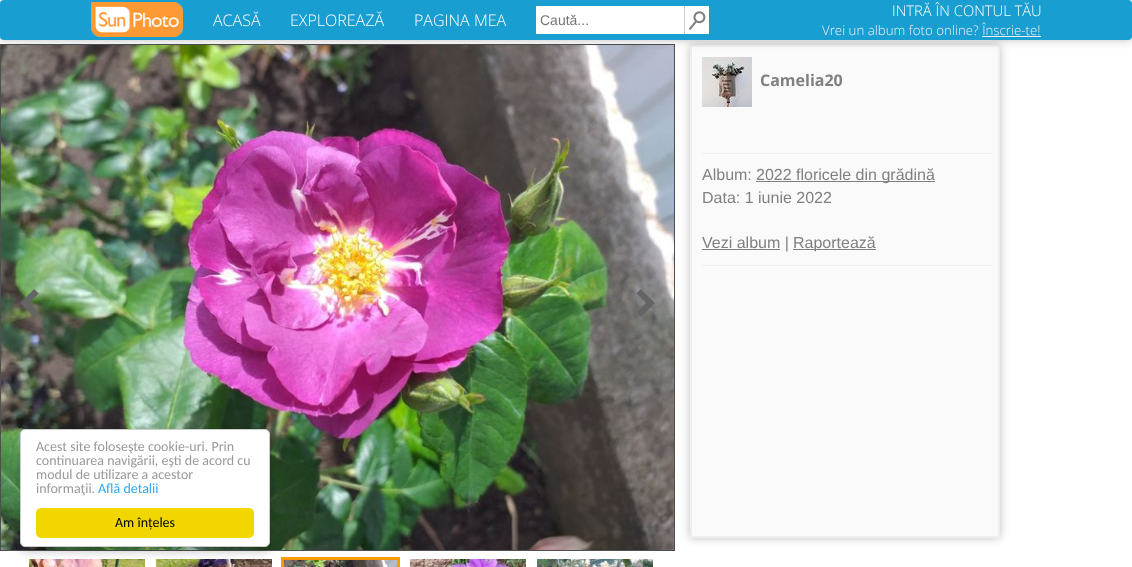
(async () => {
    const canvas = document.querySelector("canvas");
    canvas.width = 1132;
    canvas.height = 567;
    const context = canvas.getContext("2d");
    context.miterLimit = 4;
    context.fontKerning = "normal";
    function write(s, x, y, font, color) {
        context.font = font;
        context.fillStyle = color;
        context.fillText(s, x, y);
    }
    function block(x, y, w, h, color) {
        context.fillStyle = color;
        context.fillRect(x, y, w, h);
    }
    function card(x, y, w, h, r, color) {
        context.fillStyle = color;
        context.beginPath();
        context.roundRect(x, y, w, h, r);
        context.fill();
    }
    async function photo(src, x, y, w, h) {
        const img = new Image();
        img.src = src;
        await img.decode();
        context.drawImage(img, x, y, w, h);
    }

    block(0, 0, 1132, 567, "rgb(255, 255, 255)");
    context.strokeStyle = "rgb(80, 80, 80)";
    context.strokeRect(0.5, 44.5, 674, 506);
    await photo("media/3.png", 1, 45, 673, 505);
    context.fillStyle = "rgba(0, 0, 0, 0.25)";
    context.filter = "blur(5px)";
    context.beginPath();
    context.rect(690, 45, 310, 493);
    context.fill();
    context.filter = "none";
    context.fillStyle = "rgb(250, 250, 250)";
    context.beginPath();
    context.rect(691, 46, 308, 491);
    context.fill();
    context.strokeStyle = "rgb(238, 238, 238)";
    context.lineWidth = 2;
    context.stroke();
    context.fillStyle = "rgba(0, 0, 0, 0.25)";
    context.filter = "blur(5px)";
    context.beginPath();
    context.roundRect(0, 0, 1132, 40, 4);
    context.fill();
    context.filter = "none";
    card(0, 0, 1132, 40, 4, "rgb(25, 158, 210)");
    await photo("media/1.png", 91, 2, 92, 35);
    write("ACASĂ", 213, 26, "300 16px Open Sans", "rgb(255, 255, 255)");
    write("EXPLOREAZĂ", 290, 26, "300 16px Open Sans", "rgb(255, 255, 255)");
    write("PAGINA MEA", 414, 26, "300 16px Open Sans", "rgb(255, 255, 255)");
    block(536, 6, 148, 28, "rgb(255, 255, 255)");
    write("Caută...", 540, 25, "14px Liberation Sans", "rgb(117, 117, 117)");
    block(685, 6, 24, 28, "rgb(255, 255, 255)");
    block(684, 6, 1, 28, "rgb(204, 204, 204)");
    await photo("media/2.png", 688, 11, 18, 19);
    write("INTRĂ ÎN CONTUL TĂU", 892, 16, "300 14.75px Open Sans", "rgb(255, 255, 255)");
    write("Vrei un album foto online? Înscrie-te!", 822, 35, "300 13.3px Open Sans", "rgb(238, 238, 238)");
    block(982, 36, 59, 1, "rgb(238, 238, 238)");
    await photo("media/4.png", 20, 289, 19, 28);
    await photo("media/5.png", 636, 289, 19, 28);
    await photo("media/6.png", 702, 57, 50, 50);
    write("Camelia20", 760, 86, "bold 16px Open Sans", "rgb(128, 128, 128)");
    block(702, 153, 291, 1, "rgb(238, 238, 238)");
    write("Album:", 702, 180, "16px Liberation Sans", "rgb(128, 128, 128)");
    block(756, 181, 179, 1, "rgb(128, 128, 128)");
    write("2022 floricele din grădină", 756, 180, "16px Liberation Sans", "rgb(128, 128, 128)");
    write("Data: 1 iunie 2022", 702, 203, "16px Liberation Sans", "rgb(128, 128, 128)");
    block(702, 249, 78, 1, "rgb(128, 128, 128)");
    write("Vezi album |", 702, 248, "16px Liberation Sans", "rgb(128, 128, 128)");
    block(793, 249, 83, 1, "rgb(128, 128, 128)");
    write("Raportează", 793, 248, "16px Liberation Sans", "rgb(128, 128, 128)");
    block(702, 265, 291, 1, "rgb(238, 238, 238)");
    await photo("media/7.png", 29, 559, 116, 8);
    await photo("media/8.png", 156, 559, 116, 8);
    context.strokeStyle = "rgb(254, 153, 1)";
    context.lineWidth = 3;
    context.strokeRect(282.5, 558.5, 116, 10);
    await photo("media/9.png", 284, 560, 113, 7);
    await photo("media/10.png", 410, 559, 116, 8);
    await photo("media/11.png", 537, 559, 116, 8);
    context.fillStyle = "rgba(0, 0, 0, 0.2)";
    context.filter = "blur(5px)";
    context.beginPath();
    context.roundRect(20, 434, 250, 118, 5);
    context.fill();
    context.filter = "none";
    context.fillStyle = "rgb(255, 255, 255)";
    context.beginPath();
    context.roundRect(20.5, 429.5, 249, 117, 4.5);
    context.fill();
    context.strokeStyle = "rgb(204, 204, 204)";
    context.lineWidth = 1;
    context.stroke();
    write("Acest site foloseşte cookie-uri. Prin", 36, 451, "14px Carlito", "rgb(153, 153, 153)");
    write("continuarea navigării, eşti de acord cu", 36, 465, "14px Carlito", "rgb(153, 153, 153)");
    write("modul de utilizare a acestor", 36, 479, "14px Carlito", "rgb(153, 153, 153)");
    write("informaţii.", 36, 493, "14px Carlito", "rgb(153, 153, 153)");
    write("Află detalii", 98, 493, "14px Carlito", "rgb(49, 168, 240)");
    card(36, 508, 218, 30, 5, "rgb(241, 214, 0)");
    write("Am înțeles", 115, 527, "14px Carlito", "rgb(0, 0, 0)");
})();
